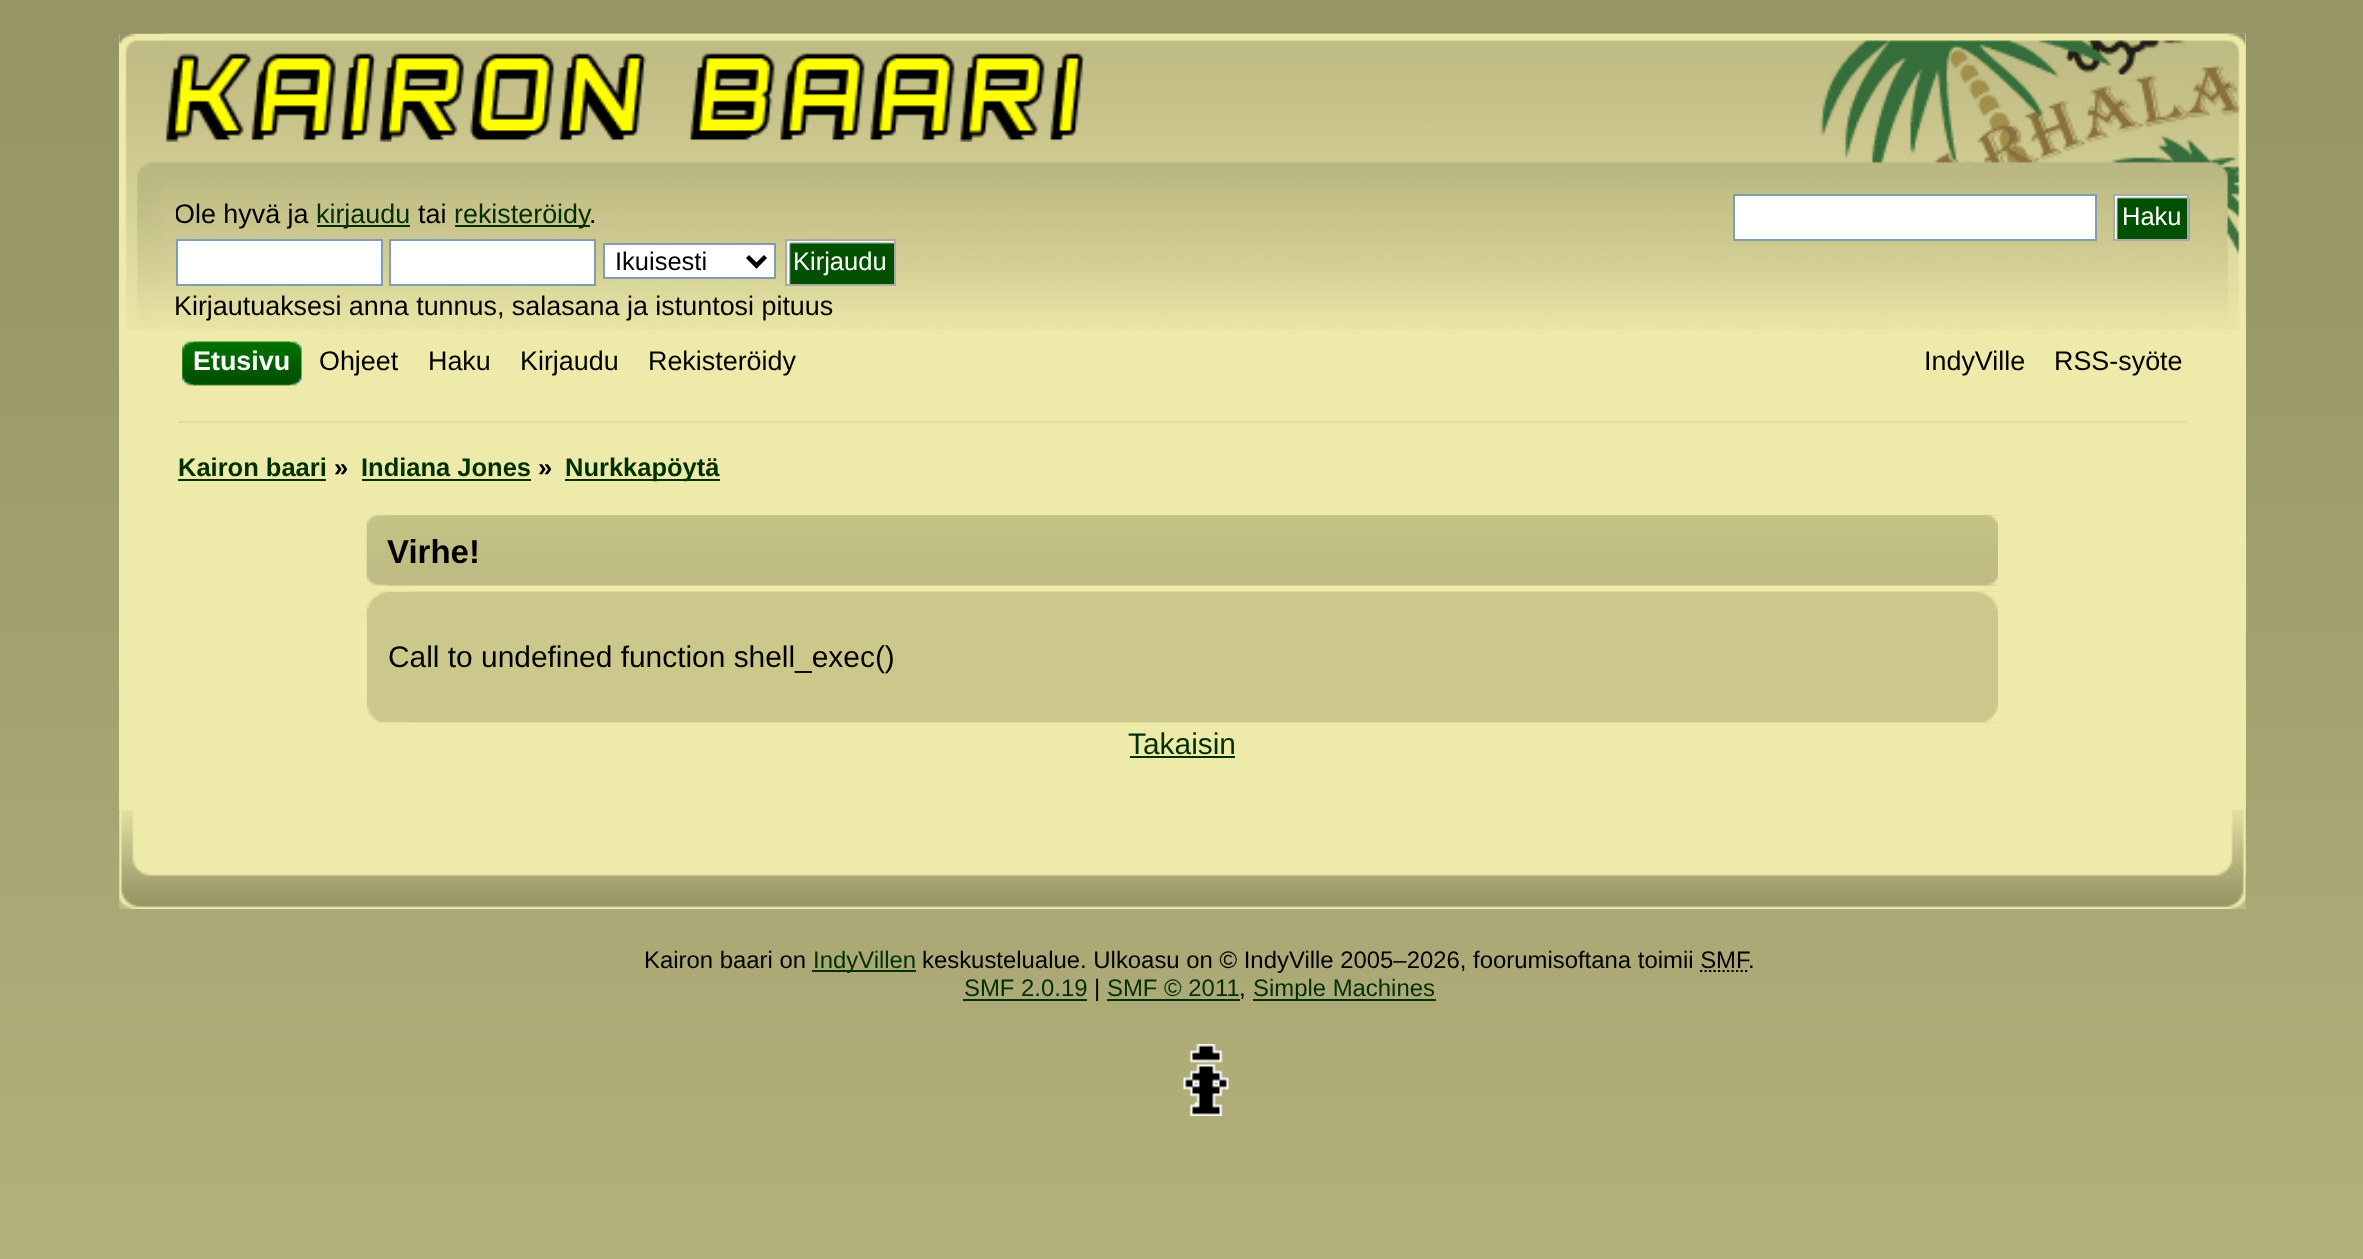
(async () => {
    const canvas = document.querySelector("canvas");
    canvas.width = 2363;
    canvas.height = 1259;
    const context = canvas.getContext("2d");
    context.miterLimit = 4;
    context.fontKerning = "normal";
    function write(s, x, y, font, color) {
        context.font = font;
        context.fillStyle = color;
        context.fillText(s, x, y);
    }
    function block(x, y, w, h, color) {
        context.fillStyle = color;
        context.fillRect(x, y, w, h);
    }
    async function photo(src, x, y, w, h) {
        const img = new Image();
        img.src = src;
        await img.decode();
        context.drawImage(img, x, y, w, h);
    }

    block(0, 0, 2363, 1259, "rgb(255, 255, 255)");
    await photo("media/1.png", 0, 0, 2363, 1259);
    block(119, 34, 2127, 776, "rgb(238, 234, 170)");
    await photo("media/2.png", 119, 33, 2127, 297);
    await photo("media/3.png", 164, 33, 2082, 297);
    await photo("media/4.png", 164, 53, 921, 89);
    context.save();
    context.beginPath();
    context.rect(176, 194, 1008, 137);
    context.clip();
    write("Ole hyvä ja", 174, 223, "26.9px Liberation Sans", "rgb(0, 0, 0)");
    context.restore();
    block(317, 225, 93, 2, "rgb(0, 48, 0)");
    write("kirjaudu", 316, 223, "26.9px Liberation Sans", "rgb(0, 48, 0)");
    write("tai", 418, 223, "26.9px Liberation Sans", "rgb(0, 0, 0)");
    block(455, 225, 135, 2, "rgb(0, 48, 0)");
    write("rekisteröidy", 454, 223, "26.9px Liberation Sans", "rgb(0, 48, 0)");
    write(".", 589, 223, "26.9px Liberation Sans", "rgb(0, 0, 0)");
    context.fillStyle = "rgb(255, 255, 255)";
    context.beginPath();
    context.rect(177, 240, 205, 45);
    context.fill();
    context.strokeStyle = "rgb(127, 157, 185)";
    context.lineWidth = 2;
    context.stroke();
    context.beginPath();
    context.rect(390, 240, 205, 45);
    context.fill();
    context.stroke();
    context.beginPath();
    context.rect(604, 244, 171, 34);
    context.fill();
    context.stroke();
    context.beginPath();
    context.moveTo(747.5, 256.5);
    context.lineTo(756.5, 265.5);
    context.lineTo(765.5, 256.5);
    context.strokeStyle = "rgb(0, 0, 0)";
    context.lineWidth = 4.5;
    context.stroke();
    write("Ikuisesti", 615, 270, "25.5px Liberation Sans", "rgb(0, 0, 0)");
    block(787, 241, 1, 43, "rgb(205, 231, 255)");
    await photo("media/5.png", 787, 241, 107, 43);
    context.strokeStyle = "rgb(170, 170, 170)";
    context.lineWidth = 2;
    context.strokeRect(786, 240, 109, 45);
    write("Kirjaudu", 793, 270, "25.5px Liberation Sans", "rgb(255, 255, 255)");
    write("Kirjautuaksesi anna tunnus, salasana ja istuntosi pituus", 174, 315, "26.9px Liberation Sans", "rgb(0, 0, 0)");
    context.fillStyle = "rgb(255, 255, 255)";
    context.beginPath();
    context.rect(1734, 195, 362, 45);
    context.fill();
    context.strokeStyle = "rgb(127, 157, 185)";
    context.stroke();
    await photo("media/6.png", 2115, 195, 75, 46);
    context.strokeStyle = "rgb(170, 170, 170)";
    context.strokeRect(2114, 195, 74, 45);
    write("Haku", 2122, 225, "25.5px Liberation Sans", "rgb(255, 255, 255)");
    await photo("media/7.png", 193, 341, 109, 45);
    await photo("media/8.png", 182, 341, 109, 45);
    write("Etusivu", 193, 370, "bold 26.9px Liberation Sans", "rgb(255, 255, 255)");
    write("Ohjeet", 319, 370, "26.9px Liberation Sans", "rgb(0, 0, 0)");
    write("Haku", 428, 370, "26.9px Liberation Sans", "rgb(0, 0, 0)");
    write("Kirjaudu", 520, 370, "26.9px Liberation Sans", "rgb(0, 0, 0)");
    write("Rekisteröidy", 648, 370, "26.9px Liberation Sans", "rgb(0, 0, 0)");
    write("IndyVille", 1924, 370, "26.9px Liberation Sans", "rgb(0, 0, 0)");
    write("RSS-syöte", 2054, 370, "26.9px Liberation Sans", "rgb(0, 0, 0)");
    block(178, 421, 2009, 2, "rgb(227, 222, 159)");
    write("Kairon baari", 178, 476, "bold 25.5px Liberation Sans", "rgb(0, 48, 0)");
    block(178, 479, 148, 2, "rgb(0, 48, 0)");
    write("»", 334, 476, "bold 25.5px Liberation Sans", "rgb(0, 0, 0)");
    write("Indiana Jones", 361, 476, "bold 25.5px Liberation Sans", "rgb(0, 48, 0)");
    block(362, 479, 169, 2, "rgb(0, 48, 0)");
    write("»", 538, 476, "bold 25.5px Liberation Sans", "rgb(0, 0, 0)");
    block(565, 479, 155, 2, "rgb(0, 48, 0)");
    write("Nurkkapöytä", 565, 476, "bold 25.5px Liberation Sans", "rgb(0, 48, 0)");
    await photo("media/9.png", 366, 515, 1632, 71);
    await photo("media/10.png", 387, 515, 1611, 71);
    write("Virhe!", 387, 563, "bold 33px Liberation Sans", "rgb(0, 0, 0)");
    block(367, 616, 1631, 82, "rgb(204, 200, 140)");
    await photo("media/11.png", 366, 591, 1632, 26);
    await photo("media/12.png", 412, 591, 1586, 20);
    write("Call to undefined function shell_exec()", 388, 667, "29.9px Liberation Sans", "rgb(0, 0, 0)");
    await photo("media/13.png", 366, 697, 1632, 26);
    await photo("media/14.png", 412, 705, 1586, 18);
    write("Takaisin", 1128, 754, "29.9px Liberation Sans", "rgb(0, 48, 0)");
    block(1130, 756, 105, 2, "rgb(0, 48, 0)");
    await photo("media/15.png", 119, 810, 2127, 99);
    await photo("media/16.png", 2216, 810, 30, 99);
    write("Kairon baari on", 644, 968, "23.9px Liberation Sans", "rgb(0, 0, 0)");
    block(812, 970, 104, 2, "rgb(0, 48, 0)");
    write("IndyVillen", 813, 968, "23.9px Liberation Sans", "rgb(0, 48, 0)");
    write("keskustelualue. Ulkoasu on © IndyVille 2005–2026, foorumisoftana toimii SMF", 922, 968, "23.9px Liberation Sans", "rgb(0, 0, 0)");
    write(".", 1748, 968, "23.9px Liberation Sans", "rgb(0, 0, 0)");
    context.beginPath();
    context.moveTo(1700, 971);
    context.lineTo(1747.5, 971);
    context.strokeStyle = "rgb(0, 0, 0)";
    context.lineWidth = 2.2;
    context.setLineDash([2.25, 2.25]);
    context.stroke();
    write("SMF 2.0.19", 964, 996, "23.9px Liberation Sans", "rgb(0, 48, 0)");
    block(963, 999, 124, 2, "rgb(0, 48, 0)");
    write("|", 1094, 996, "23.9px Liberation Sans", "rgb(0, 0, 0)");
    write("SMF © 2011", 1107, 996, "23.9px Liberation Sans", "rgb(0, 48, 0)");
    write(",", 1239, 996, "23.9px Liberation Sans", "rgb(0, 0, 0)");
    block(1107, 999, 133, 2, "rgb(0, 48, 0)");
    block(1253, 999, 183, 2, "rgb(0, 48, 0)");
    write("Simple Machines", 1253, 996, "23.9px Liberation Sans", "rgb(0, 48, 0)");
    await photo("media/17.png", 1183, 1044, 46, 72);
})();
